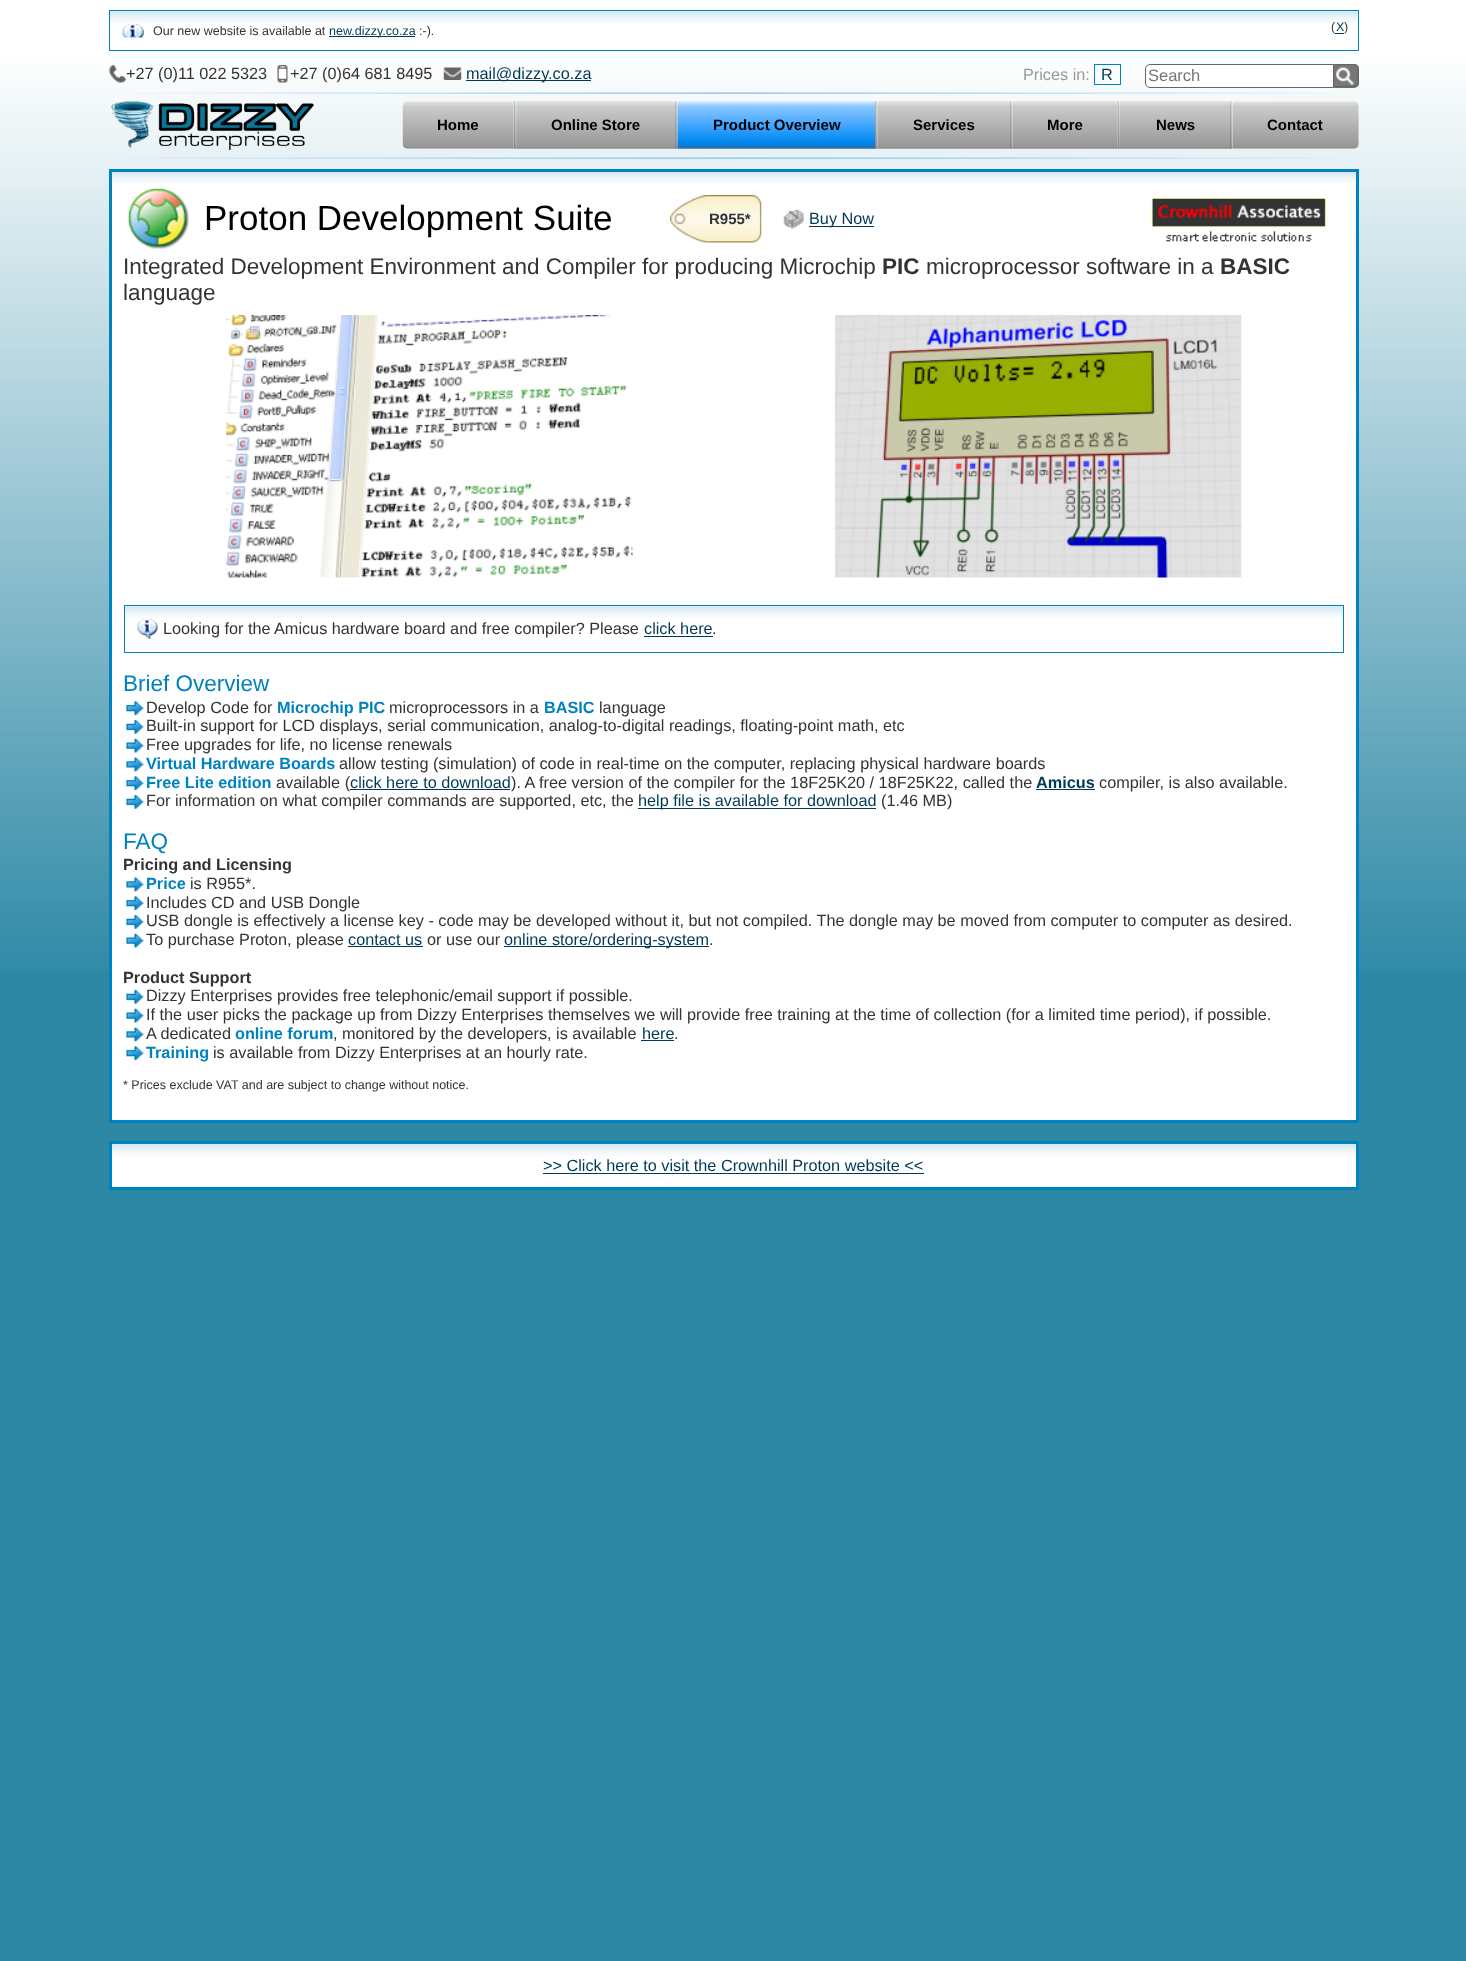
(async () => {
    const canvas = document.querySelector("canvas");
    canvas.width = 1466;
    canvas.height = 1961;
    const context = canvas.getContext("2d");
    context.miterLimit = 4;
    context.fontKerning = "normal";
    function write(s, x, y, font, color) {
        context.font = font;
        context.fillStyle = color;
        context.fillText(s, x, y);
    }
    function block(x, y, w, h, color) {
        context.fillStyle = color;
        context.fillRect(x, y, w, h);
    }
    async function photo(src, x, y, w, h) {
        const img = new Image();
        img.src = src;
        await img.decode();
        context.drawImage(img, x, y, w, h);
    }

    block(0, 0, 1466, 1961, "rgb(45, 136, 166)");
    await photo("media/1.png", 0, 0, 1466, 971);
    await photo("media/2.png", 108, 11, 1250, 12);
    context.strokeStyle = "rgb(0, 130, 191)";
    context.strokeRect(109.5, 10.5, 1249, 40);
    await photo("media/3.png", 122, 23, 22, 15);
    write("Our new website is available at", 153, 35, "12.5px Liberation Sans", "rgb(51, 51, 51)");
    block(329, 36, 86, 1, "rgb(0, 57, 85)");
    write("new.dizzy.co.za", 329, 35, "12.5px Liberation Sans", "rgb(0, 57, 85)");
    write(":-).", 419, 35, "12.5px Liberation Sans", "rgb(51, 51, 51)");
    write("(", 1331, 31, "12.5px Liberation Sans", "rgb(51, 51, 51)");
    write("X", 1336, 31, "12.5px Liberation Sans", "rgb(0, 57, 85)");
    block(1335, 33, 9, 1, "rgb(0, 57, 85)");
    write(")", 1344, 31, "12.5px Liberation Sans", "rgb(51, 51, 51)");
    await photo("media/4.png", 108, 65, 19, 18);
    write("+27 (0)11 022 5323", 126, 79, "16.25px Liberation Sans", "rgb(51, 51, 51)");
    await photo("media/5.png", 277, 65, 11, 18);
    write("+27 (0)64 681 8495", 290, 79, "16.25px Liberation Sans", "rgb(51, 51, 51)");
    await photo("media/6.png", 443, 67, 19, 13);
    block(466, 80, 125, 1, "rgb(0, 57, 85)");
    write("mail@dizzy.co.za", 466, 79, "16.25px Liberation Sans", "rgb(0, 57, 85)");
    write("Prices in:", 1023, 80, "16.25px Liberation Sans", "rgb(153, 153, 153)");
    context.strokeRect(1094.5, 64.5, 26, 20);
    write("R", 1101, 80, "16.25px Liberation Sans", "rgb(0, 57, 85)");
    context.fillStyle = "rgb(255, 255, 255)";
    context.beginPath();
    context.roundRect(1145.5, 64.5, 188, 23, [4.5, 0, 0, 4.5]);
    context.fill();
    context.strokeStyle = "rgb(102, 102, 102)";
    context.stroke();
    write("Search", 1148, 81, "16.5px Liberation Sans", "rgb(117, 117, 117)");
    context.fillStyle = "rgb(119, 119, 119)";
    context.beginPath();
    context.roundRect(1334, 64, 25, 24, [0, 5, 5, 0]);
    context.fill();
    await photo("media/7.png", 1336, 67, 18, 18);
    context.fillStyle = "rgb(102, 102, 102)";
    context.beginPath();
    context.moveTo(1334, 64);
    context.lineTo(1354, 64);
    context.bezierCurveTo(1356.5, 64, 1359, 66, 1359, 69);
    context.lineTo(1359, 82.5);
    context.bezierCurveTo(1359, 85.5, 1356.5, 87.5, 1354, 87.5);
    context.lineTo(1334, 87.5);
    context.closePath();
    context.moveTo(1334, 65);
    context.lineTo(1354, 65);
    context.bezierCurveTo(1356, 65, 1357.5, 66.5, 1357.5, 69);
    context.lineTo(1357.5, 82.5);
    context.bezierCurveTo(1357.5, 84.5, 1356, 86, 1354, 86);
    context.lineTo(1334, 86);
    context.closePath();
    context.fill("evenodd");
    await photo("media/8.png", 129, 92, 1211, 2);
    await photo("media/9.png", 111, 101, 203, 49);
    await photo("media/10.png", 513, 101, 4, 48);
    await photo("media/11.png", 402, 101, 112, 48);
    write("Home", 437, 130, "bold 15px Liberation Sans", "rgb(0, 0, 0)");
    await photo("media/12.png", 675, 101, 3, 48);
    await photo("media/13.png", 516, 101, 159, 48);
    write("Online Store", 551, 130, "bold 15px Liberation Sans", "rgb(0, 0, 0)");
    await photo("media/12.png", 875, 101, 3, 48);
    await photo("media/14.png", 677, 101, 198, 48);
    write("Product Overview", 713, 130, "bold 15px Liberation Sans", "rgb(0, 0, 0)");
    await photo("media/12.png", 1010, 101, 3, 48);
    await photo("media/15.png", 877, 101, 133, 48);
    write("Services", 913, 130, "bold 15px Liberation Sans", "rgb(0, 0, 0)");
    await photo("media/16.png", 1117, 101, 3, 48);
    await photo("media/17.png", 1012, 101, 106, 48);
    write("More", 1047, 130, "bold 15px Liberation Sans", "rgb(0, 0, 0)");
    await photo("media/12.png", 1230, 101, 3, 48);
    await photo("media/18.png", 1120, 101, 110, 48);
    write("News", 1156, 130, "bold 15px Liberation Sans", "rgb(0, 0, 0)");
    await photo("media/19.png", 1232, 101, 127, 48);
    write("Contact", 1267, 130, "bold 15px Liberation Sans", "rgb(0, 0, 0)");
    await photo("media/20.png", 129, 157, 1211, 2);
    block(112, 172, 1244, 948, "rgb(255, 255, 255)");
    await photo("media/21.png", 108, 171, 1248, 12);
    context.strokeStyle = "rgb(0, 130, 191)";
    context.lineWidth = 3;
    context.strokeRect(110.5, 170.5, 1247, 951);
    await photo("media/22.png", 128, 188, 61, 61);
    write("Proton Development Suite", 204, 230, "35px Liberation Sans", "rgb(0, 0, 0)");
    await photo("media/23.png", 670, 195, 39, 48);
    await photo("media/24.png", 708, 195, 54, 48);
    write("R955*", 709, 224, "bold 15px Liberation Sans", "rgb(51, 51, 51)");
    await photo("media/25.png", 783, 209, 21, 20);
    block(809, 226, 65, 1, "rgb(0, 57, 85)");
    write("Buy Now", 809, 224, "16.25px Liberation Sans", "rgb(0, 57, 85)");
    await photo("media/26.png", 1151, 197, 176, 45);
    write("Integrated Development Environment and Compiler for producing Microchip", 123, 274, "22.5px Liberation Sans", "rgb(51, 51, 51)");
    write("PIC", 882, 274, "bold 22.5px Liberation Sans", "rgb(51, 51, 51)");
    write("microprocessor software in a", 926, 274, "22.5px Liberation Sans", "rgb(51, 51, 51)");
    write("BASIC", 1220, 274, "bold 22.5px Liberation Sans", "rgb(51, 51, 51)");
    write("language", 123, 300, "22.5px Liberation Sans", "rgb(51, 51, 51)");
    await photo("media/27.png", 226, 315, 407, 263);
    await photo("media/28.png", 835, 315, 407, 263);
    await photo("media/29.png", 123, 606, 1220, 12);
    context.lineWidth = 1;
    context.strokeRect(124.5, 605.5, 1219, 47);
    await photo("media/30.png", 137, 618, 21, 21);
    write("Looking for the", 163, 634, "16.25px Liberation Sans", "rgb(51, 51, 51)");
    write("Amicus hardware board and free compiler? Please", 274, 634, "16.25px Liberation Sans", "rgb(51, 51, 51)");
    write("click here", 644, 634, "16.25px Liberation Sans", "rgb(0, 57, 85)");
    block(644, 636, 69, 1, "rgb(0, 57, 85)");
    write(".", 712, 634, "16.25px Liberation Sans", "rgb(51, 51, 51)");
    write("Brief Overview", 123, 691, "22.5px Liberation Sans", "rgb(0, 130, 191)");
    await photo("media/31.png", 126, 701, 18, 15);
    write("Develop Code for", 146, 713, "16.25px Liberation Sans", "rgb(51, 51, 51)");
    write("Microchip PIC", 277, 713, "bold 16.25px Liberation Sans", "rgb(0, 130, 191)");
    write("microprocessors in a", 389, 713, "16.25px Liberation Sans", "rgb(51, 51, 51)");
    write("BASIC", 544, 713, "bold 16.25px Liberation Sans", "rgb(0, 130, 191)");
    write("language", 599, 713, "16.25px Liberation Sans", "rgb(51, 51, 51)");
    await photo("media/32.png", 126, 719, 18, 15);
    write("Built-in support for LCD displays, serial communication, analog-to-digital readings, floating-point math, etc", 146, 731, "16.25px Liberation Sans", "rgb(51, 51, 51)");
    await photo("media/33.png", 126, 738, 18, 15);
    write("Free upgrades for life, no license renewals", 146, 750, "16.25px Liberation Sans", "rgb(51, 51, 51)");
    await photo("media/34.png", 126, 757, 18, 15);
    write("Virtual Hardware Boards", 146, 769, "bold 16.25px Liberation Sans", "rgb(0, 130, 191)");
    write("allow testing (simulation) of code in real-time on the computer, replacing physical hardware boards", 339, 769, "16.25px Liberation Sans", "rgb(51, 51, 51)");
    await photo("media/35.png", 126, 776, 18, 15);
    write("Free Lite edition", 146, 788, "bold 16.25px Liberation Sans", "rgb(0, 130, 191)");
    write("available (", 276, 788, "16.25px Liberation Sans", "rgb(51, 51, 51)");
    write("click here to download", 350, 788, "16.25px Liberation Sans", "rgb(0, 57, 85)");
    block(350, 789, 160, 1, "rgb(0, 57, 85)");
    write("). A free version of the compiler for the 18F25K20 / 18F25K22, called the", 511, 788, "16.25px Liberation Sans", "rgb(51, 51, 51)");
    write("Amicus", 1036, 788, "bold 16.25px Liberation Sans", "rgb(0, 57, 85)");
    block(1036, 789, 59, 1, "rgb(0, 57, 85)");
    write("compiler, is also available.", 1099, 788, "16.25px Liberation Sans", "rgb(51, 51, 51)");
    await photo("media/32.png", 126, 794, 18, 15);
    write("For information on what compiler commands are supported, etc, the", 146, 806, "16.25px Liberation Sans", "rgb(51, 51, 51)");
    block(638, 808, 238, 1, "rgb(0, 57, 85)");
    write("help file is available for download", 638, 806, "16.25px Liberation Sans", "rgb(0, 57, 85)");
    write("(1.46 MB)", 881, 806, "16.25px Liberation Sans", "rgb(51, 51, 51)");
    write("FAQ", 123, 849, "22.5px Liberation Sans", "rgb(0, 130, 191)");
    write("Pricing and Licensing", 123, 870, "bold 16.25px Liberation Sans", "rgb(51, 51, 51)");
    await photo("media/34.png", 126, 877, 18, 15);
    write("Price", 146, 889, "bold 16.25px Liberation Sans", "rgb(0, 130, 191)");
    write("is R955*.", 190, 889, "16.25px Liberation Sans", "rgb(51, 51, 51)");
    await photo("media/31.png", 126, 896, 18, 15);
    write("Includes CD and USB Dongle", 146, 908, "16.25px Liberation Sans", "rgb(51, 51, 51)");
    await photo("media/32.png", 126, 914, 18, 15);
    write("USB dongle is effectively a license key - code may be developed without it, but not compiled. The dongle may be moved from computer to computer as desired.", 146, 926, "16.25px Liberation Sans", "rgb(51, 51, 51)");
    await photo("media/33.png", 126, 933, 18, 15);
    write("To purchase Proton, please", 146, 945, "16.25px Liberation Sans", "rgb(51, 51, 51)");
    write("contact us", 348, 945, "16.25px Liberation Sans", "rgb(0, 57, 85)");
    block(348, 946, 75, 1, "rgb(0, 57, 85)");
    write("or use our", 427, 945, "16.25px Liberation Sans", "rgb(51, 51, 51)");
    block(504, 946, 205, 1, "rgb(0, 57, 85)");
    write("online store/ordering-system", 504, 945, "16.25px Liberation Sans", "rgb(0, 57, 85)");
    write(".", 709, 945, "16.25px Liberation Sans", "rgb(51, 51, 51)");
    write("Product Support", 123, 983, "bold 16.25px Liberation Sans", "rgb(51, 51, 51)");
    await photo("media/32.png", 126, 989, 18, 15);
    write("Dizzy Enterprises provides free telephonic/email support if possible.", 146, 1001, "16.25px Liberation Sans", "rgb(51, 51, 51)");
    await photo("media/33.png", 126, 1008, 18, 15);
    write("If the user picks the package up from Dizzy Enterprises themselves we will provide free training at the time of collection (for a limited time period), if possible.", 146, 1020, "16.25px Liberation Sans", "rgb(51, 51, 51)");
    await photo("media/36.png", 126, 1027, 18, 15);
    write("A dedicated", 146, 1039, "16.25px Liberation Sans", "rgb(51, 51, 51)");
    write("online forum", 235, 1039, "bold 16.25px Liberation Sans", "rgb(0, 130, 191)");
    write(", monitored by the developers, is available", 333, 1039, "16.25px Liberation Sans", "rgb(51, 51, 51)");
    write("here", 642, 1039, "16.25px Liberation Sans", "rgb(0, 57, 85)");
    block(641, 1040, 33, 1, "rgb(0, 57, 85)");
    write(".", 674, 1039, "16.25px Liberation Sans", "rgb(51, 51, 51)");
    await photo("media/31.png", 126, 1046, 18, 15);
    write("Training", 146, 1058, "bold 16.25px Liberation Sans", "rgb(0, 130, 191)");
    write("is available from Dizzy Enterprises at an hourly rate.", 213, 1058, "16.25px Liberation Sans", "rgb(51, 51, 51)");
    write("* Prices exclude VAT and are subject to change without notice.", 123, 1089, "12.5px Liberation Sans", "rgb(51, 51, 51)");
    block(112, 1144, 1244, 43, "rgb(255, 255, 255)");
    await photo("media/37.png", 112, 1144, 1244, 12);
    context.lineWidth = 3;
    context.strokeRect(110.5, 1142.5, 1247, 46);
    write(">> Click here to visit the Crownhill Proton website <<", 543, 1171, "16.25px Liberation Sans", "rgb(0, 57, 85)");
    block(543, 1173, 381, 1, "rgb(0, 57, 85)");
})();
